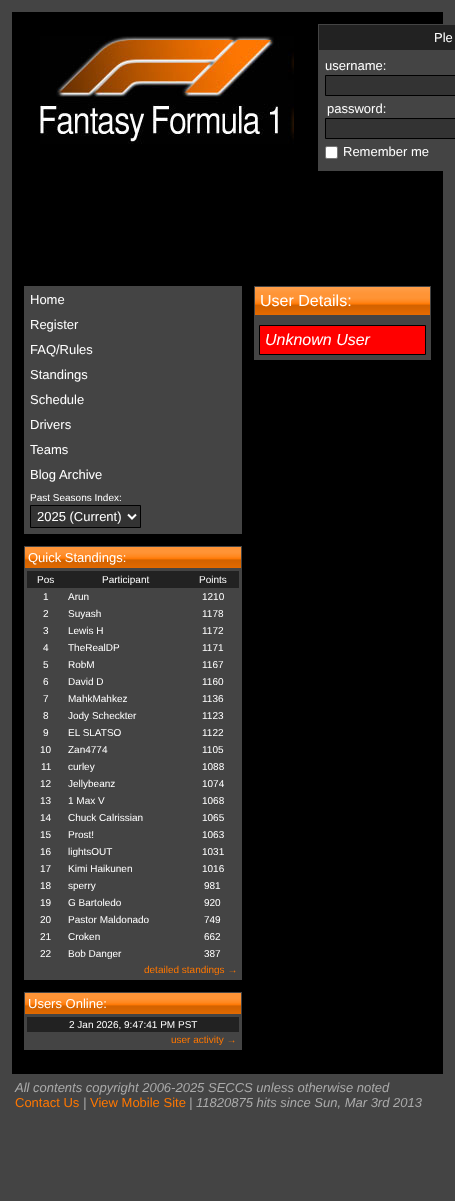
(async () => {
    const canvas = document.querySelector("canvas");
    canvas.width = 455;
    canvas.height = 1201;
    const context = canvas.getContext("2d");
    context.miterLimit = 4;
    context.fontKerning = "normal";
    function write(s, x, y, font, color) {
        context.font = font;
        context.fillStyle = color;
        context.fillText(s, x, y);
    }
    function block(x, y, w, h, color) {
        context.fillStyle = color;
        context.fillRect(x, y, w, h);
    }
    async function photo(src, x, y, w, h) {
        const img = new Image();
        img.src = src;
        await img.decode();
        context.drawImage(img, x, y, w, h);
    }

    block(0, 0, 455, 1201, "rgb(68, 68, 68)");
    block(12, 12, 431, 1062, "rgb(0, 0, 0)");
    await photo("media/1.png", 40, 36, 254, 108);
    block(318, 24, 125, 147, "rgb(68, 68, 68)");
    block(319, 25, 136, 25, "rgb(34, 34, 34)");
    write("Ple", 434, 42, "13px Liberation Sans", "rgb(255, 255, 255)");
    write("username:", 325, 70, "13px Liberation Sans", "rgb(255, 255, 255)");
    context.fillStyle = "rgb(51, 51, 51)";
    context.beginPath();
    context.rect(325.5, 75.5, 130, 20);
    context.fill();
    context.strokeStyle = "rgb(0, 0, 0)";
    context.stroke();
    write("password:", 327, 113, "13px Liberation Sans", "rgb(255, 255, 255)");
    context.fillStyle = "rgb(51, 51, 51)";
    context.beginPath();
    context.rect(325.5, 118.5, 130, 20);
    context.fill();
    context.stroke();
    context.fillStyle = "rgb(255, 255, 255)";
    context.beginPath();
    context.roundRect(325.5, 146.5, 12, 12, 1.5);
    context.fill();
    context.strokeStyle = "rgb(118, 118, 118)";
    context.stroke();
    write("Remember me", 343, 156, "13px Liberation Sans", "rgb(255, 255, 255)");
    context.strokeStyle = "rgb(68, 68, 68)";
    context.strokeRect(24.5, 286.5, 217, 247);
    block(25, 287, 216, 246, "rgb(68, 68, 68)");
    write("Home", 30, 304, "13px Liberation Sans", "rgb(255, 255, 255)");
    write("Register", 30, 329, "13px Liberation Sans", "rgb(255, 255, 255)");
    write("FAQ/Rules", 30, 354, "13px Liberation Sans", "rgb(255, 255, 255)");
    write("Standings", 30, 379, "13px Liberation Sans", "rgb(255, 255, 255)");
    write("Schedule", 30, 404, "13px Liberation Sans", "rgb(255, 255, 255)");
    write("Drivers", 30, 429, "13px Liberation Sans", "rgb(255, 255, 255)");
    write("Teams", 30, 454, "13px Liberation Sans", "rgb(255, 255, 255)");
    write("Blog Archive", 30, 479, "13px Liberation Sans", "rgb(255, 255, 255)");
    write("Past Seasons Index:", 30, 501, "10px Liberation Sans", "rgb(255, 255, 255)");
    context.fillStyle = "rgb(51, 51, 51)";
    context.beginPath();
    context.rect(30.5, 505.5, 110, 22);
    context.fill();
    context.strokeStyle = "rgb(0, 0, 0)";
    context.stroke();
    context.beginPath();
    context.moveTo(128, 514.5);
    context.lineTo(132, 518.5);
    context.lineTo(136, 514.5);
    context.strokeStyle = "rgb(255, 255, 255)";
    context.lineWidth = 2;
    context.stroke();
    write("2025 (Current)", 37, 521, "13px Liberation Sans", "rgb(255, 255, 255)");
    await photo("media/2.png", 25, 547, 216, 21);
    block(24, 546, 218, 1, "rgb(68, 68, 68)");
    block(241, 546, 1, 22, "rgb(68, 68, 68)");
    block(24, 546, 1, 22, "rgb(68, 68, 68)");
    write("Quick Standings:", 28, 562, "13px Liberation Sans", "rgb(255, 255, 255)");
    block(24, 568, 218, 412, "rgb(68, 68, 68)");
    block(27, 571, 212, 17, "rgb(34, 34, 34)");
    write("Pos", 37, 583, "10px Liberation Sans", "rgb(255, 255, 255)");
    write("Participant", 102, 583, "10px Liberation Sans", "rgb(255, 255, 255)");
    write("Points", 199, 583, "10px Liberation Sans", "rgb(255, 255, 255)");
    write("1", 43, 600, "10px Liberation Sans", "rgb(255, 255, 255)");
    write("Arun", 68, 600, "10px Liberation Sans", "rgb(255, 255, 255)");
    write("1210", 202, 600, "10px Liberation Sans", "rgb(255, 255, 255)");
    write("2", 43, 617, "10px Liberation Sans", "rgb(255, 255, 255)");
    write("Suyash", 68, 617, "10px Liberation Sans", "rgb(255, 255, 255)");
    write("1178", 202, 617, "10px Liberation Sans", "rgb(255, 255, 255)");
    write("3", 43, 634, "10px Liberation Sans", "rgb(255, 255, 255)");
    write("Lewis H", 68, 634, "10px Liberation Sans", "rgb(255, 255, 255)");
    write("1172", 202, 634, "10px Liberation Sans", "rgb(255, 255, 255)");
    write("4", 43, 651, "10px Liberation Sans", "rgb(255, 255, 255)");
    write("TheRealDP", 68, 651, "10px Liberation Sans", "rgb(255, 255, 255)");
    write("1171", 202, 651, "10px Liberation Sans", "rgb(255, 255, 255)");
    write("5", 43, 668, "10px Liberation Sans", "rgb(255, 255, 255)");
    write("RobM", 68, 668, "10px Liberation Sans", "rgb(255, 255, 255)");
    write("1167", 202, 668, "10px Liberation Sans", "rgb(255, 255, 255)");
    write("6", 43, 685, "10px Liberation Sans", "rgb(255, 255, 255)");
    write("David D", 68, 685, "10px Liberation Sans", "rgb(255, 255, 255)");
    write("1160", 202, 685, "10px Liberation Sans", "rgb(255, 255, 255)");
    write("7", 43, 702, "10px Liberation Sans", "rgb(255, 255, 255)");
    write("MahkMahkez", 68, 702, "10px Liberation Sans", "rgb(255, 255, 255)");
    write("1136", 202, 702, "10px Liberation Sans", "rgb(255, 255, 255)");
    write("8", 43, 719, "10px Liberation Sans", "rgb(255, 255, 255)");
    write("Jody Scheckter", 68, 719, "10px Liberation Sans", "rgb(255, 255, 255)");
    write("1123", 202, 719, "10px Liberation Sans", "rgb(255, 255, 255)");
    write("9", 43, 736, "10px Liberation Sans", "rgb(255, 255, 255)");
    write("EL SLATSO", 68, 736, "10px Liberation Sans", "rgb(255, 255, 255)");
    write("1122", 202, 736, "10px Liberation Sans", "rgb(255, 255, 255)");
    write("10", 40, 753, "10px Liberation Sans", "rgb(255, 255, 255)");
    write("Zan4774", 68, 753, "10px Liberation Sans", "rgb(255, 255, 255)");
    write("1105", 202, 753, "10px Liberation Sans", "rgb(255, 255, 255)");
    write("11", 41, 770, "10px Liberation Sans", "rgb(255, 255, 255)");
    write("curley", 68, 770, "10px Liberation Sans", "rgb(255, 255, 255)");
    write("1088", 202, 770, "10px Liberation Sans", "rgb(255, 255, 255)");
    write("12", 40, 787, "10px Liberation Sans", "rgb(255, 255, 255)");
    write("Jellybeanz", 68, 787, "10px Liberation Sans", "rgb(255, 255, 255)");
    write("1074", 202, 787, "10px Liberation Sans", "rgb(255, 255, 255)");
    write("13", 40, 804, "10px Liberation Sans", "rgb(255, 255, 255)");
    write("1 Max V", 68, 804, "10px Liberation Sans", "rgb(255, 255, 255)");
    write("1068", 202, 804, "10px Liberation Sans", "rgb(255, 255, 255)");
    write("14", 40, 821, "10px Liberation Sans", "rgb(255, 255, 255)");
    write("Chuck Calrissian", 68, 821, "10px Liberation Sans", "rgb(255, 255, 255)");
    write("1065", 202, 821, "10px Liberation Sans", "rgb(255, 255, 255)");
    write("15", 40, 838, "10px Liberation Sans", "rgb(255, 255, 255)");
    write("Prost!", 68, 838, "10px Liberation Sans", "rgb(255, 255, 255)");
    write("1063", 202, 838, "10px Liberation Sans", "rgb(255, 255, 255)");
    write("16", 40, 855, "10px Liberation Sans", "rgb(255, 255, 255)");
    write("lightsOUT", 68, 855, "10px Liberation Sans", "rgb(255, 255, 255)");
    write("1031", 202, 855, "10px Liberation Sans", "rgb(255, 255, 255)");
    write("17", 40, 872, "10px Liberation Sans", "rgb(255, 255, 255)");
    write("Kimi Haikunen", 68, 872, "10px Liberation Sans", "rgb(255, 255, 255)");
    write("1016", 202, 872, "10px Liberation Sans", "rgb(255, 255, 255)");
    write("18", 40, 889, "10px Liberation Sans", "rgb(255, 255, 255)");
    write("sperry", 68, 889, "10px Liberation Sans", "rgb(255, 255, 255)");
    write("981", 204, 889, "10px Liberation Sans", "rgb(255, 255, 255)");
    write("19", 40, 906, "10px Liberation Sans", "rgb(255, 255, 255)");
    write("G Bartoledo", 68, 906, "10px Liberation Sans", "rgb(255, 255, 255)");
    write("920", 204, 906, "10px Liberation Sans", "rgb(255, 255, 255)");
    write("20", 40, 923, "10px Liberation Sans", "rgb(255, 255, 255)");
    write("Pastor Maldonado", 68, 923, "10px Liberation Sans", "rgb(255, 255, 255)");
    write("749", 204, 923, "10px Liberation Sans", "rgb(255, 255, 255)");
    write("21", 40, 940, "10px Liberation Sans", "rgb(255, 255, 255)");
    write("Croken", 68, 940, "10px Liberation Sans", "rgb(255, 255, 255)");
    write("662", 204, 940, "10px Liberation Sans", "rgb(255, 255, 255)");
    write("22", 40, 957, "10px Liberation Sans", "rgb(255, 255, 255)");
    write("Bob Danger", 68, 957, "10px Liberation Sans", "rgb(255, 255, 255)");
    write("387", 204, 957, "10px Liberation Sans", "rgb(255, 255, 255)");
    write("detailed standings →", 144, 973, "10px Liberation Sans", "rgb(255, 119, 0)");
    await photo("media/2.png", 25, 993, 216, 21);
    block(24, 992, 218, 1, "rgb(68, 68, 68)");
    block(241, 992, 1, 22, "rgb(68, 68, 68)");
    block(24, 992, 1, 22, "rgb(68, 68, 68)");
    write("Users Online:", 28, 1008, "13px Liberation Sans", "rgb(255, 255, 255)");
    block(24, 1014, 218, 36, "rgb(68, 68, 68)");
    block(27, 1017, 212, 15, "rgb(34, 34, 34)");
    write("2 Jan 2026, 9:47:41 PM PST", 69, 1028, "10px Liberation Sans", "rgb(255, 255, 255)");
    write("user activity →", 171, 1043, "10px Liberation Sans", "rgb(255, 119, 0)");
    await photo("media/3.png", 255, 287, 175, 28);
    block(254, 286, 177, 1, "rgb(68, 68, 68)");
    block(430, 286, 1, 29, "rgb(68, 68, 68)");
    block(254, 286, 1, 29, "rgb(68, 68, 68)");
    write("User Details:", 260, 306, "16px Liberation Sans", "rgb(255, 255, 255)");
    block(254, 315, 177, 45, "rgb(68, 68, 68)");
    context.fillStyle = "rgb(255, 0, 0)";
    context.beginPath();
    context.rect(259.5, 325.5, 166, 29);
    context.fill();
    context.strokeStyle = "rgb(0, 0, 0)";
    context.lineWidth = 1;
    context.stroke();
    write("Unknown User", 265, 345, "italic 16px Liberation Sans", "rgb(255, 255, 255)");
    write("All contents copyright 2006-2025 SECCS unless otherwise noted", 15, 1092, "italic 13px Liberation Sans", "rgb(170, 170, 170)");
    write("Contact Us", 15, 1107, "13px Liberation Sans", "rgb(255, 119, 0)");
    write("|", 83, 1107, "italic 13px Liberation Sans", "rgb(170, 170, 170)");
    write("View Mobile Site", 90, 1107, "13px Liberation Sans", "rgb(255, 119, 0)");
    write("| 11820875 hits since Sun, Mar 3rd 2013", 189, 1107, "italic 13px Liberation Sans", "rgb(170, 170, 170)");
})();
